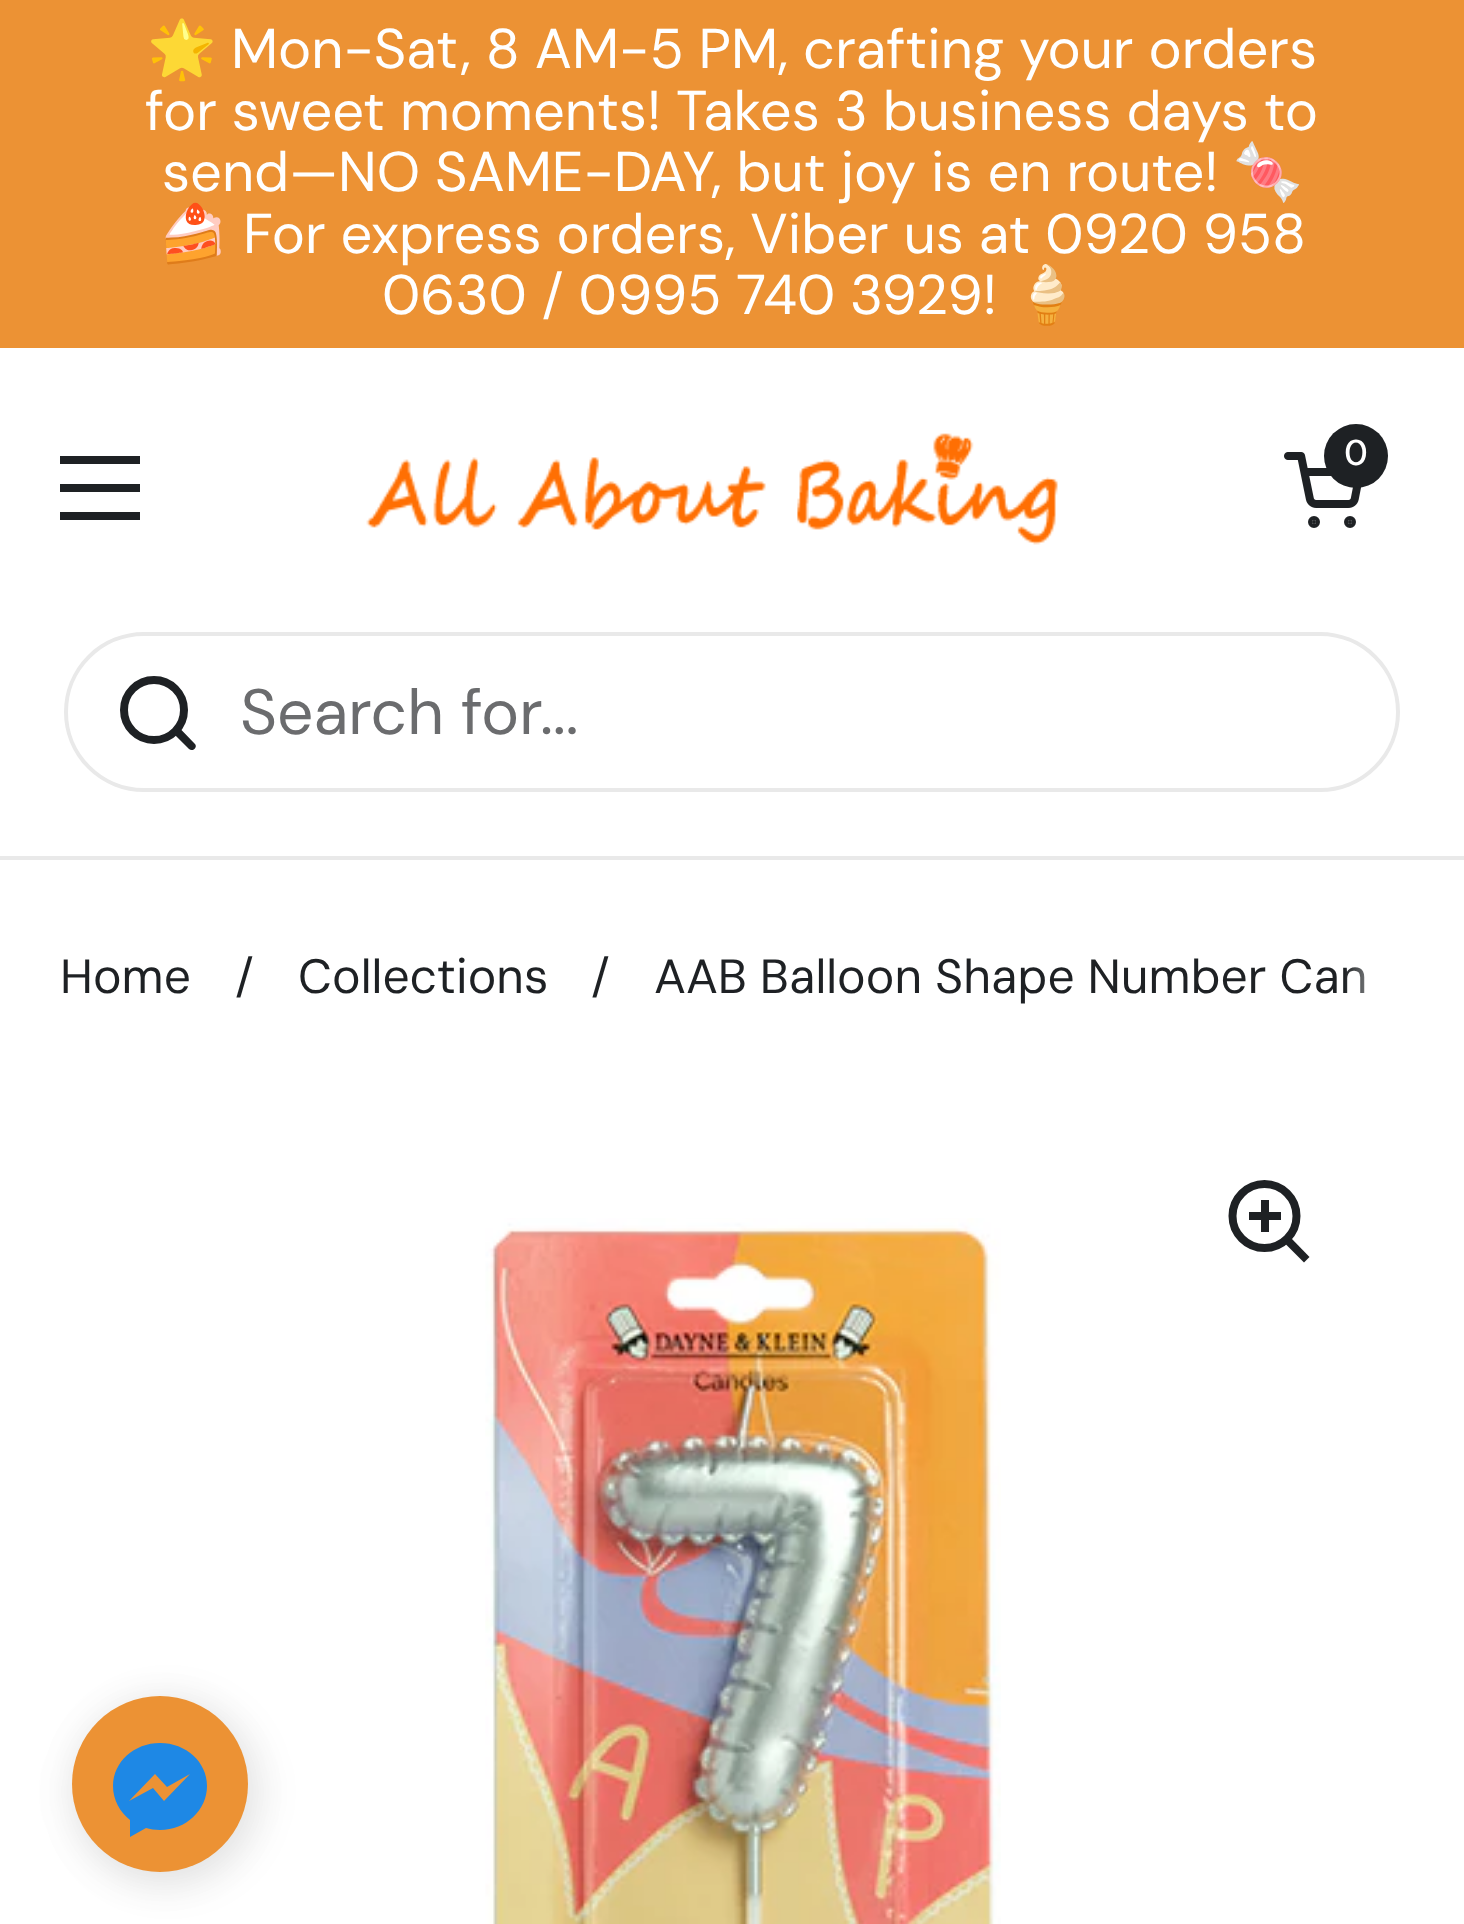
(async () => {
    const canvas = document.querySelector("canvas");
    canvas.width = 1464;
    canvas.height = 1924;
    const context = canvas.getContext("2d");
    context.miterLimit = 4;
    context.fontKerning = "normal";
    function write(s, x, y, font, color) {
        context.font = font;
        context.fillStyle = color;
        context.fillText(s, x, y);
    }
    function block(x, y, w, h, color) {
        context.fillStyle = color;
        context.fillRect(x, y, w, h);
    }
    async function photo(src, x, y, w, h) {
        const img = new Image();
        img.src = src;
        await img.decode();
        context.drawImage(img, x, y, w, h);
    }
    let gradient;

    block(0, 0, 1464, 1924, "rgb(255, 255, 255)");
    block(0, 0, 1464, 348, "rgb(236, 146, 52)");
    write("🌟", 147, 68, "56px Noto Color Emoji", "rgb(255, 255, 255)");
    write("Mon-Sat, 8 AM-5 PM, crafting your orders", 231, 68, "56px DM Sans", "rgb(255, 255, 255)");
    write("for sweet moments! Takes 3 business days to", 145, 130, "56px DM Sans", "rgb(255, 255, 255)");
    write("send—NO SAME-DAY, but joy is en route!", 162, 191, "56px DM Sans", "rgb(255, 255, 255)");
    write("🍬", 1233, 191, "56px Noto Color Emoji", "rgb(255, 255, 255)");
    write("🍰", 158, 253, "56px Noto Color Emoji", "rgb(255, 255, 255)");
    write("For express orders, Viber us at 0920 958", 243, 253, "56px DM Sans", "rgb(255, 255, 255)");
    write("0630 / 0995 740 3929!", 382, 314, "56px DM Sans", "rgb(255, 255, 255)");
    write("🍦", 1012, 314, "56px Noto Color Emoji", "rgb(255, 255, 255)");
    await photo("media/1.png", 366, 433, 692, 112);
    await photo("media/2.png", 1284, 452, 78, 76);
    context.fillStyle = "rgb(30, 33, 36)";
    context.beginPath();
    context.arc(1356, 456, 32, 0, Math.PI * 2);
    context.fill();
    write("0", 1344, 465, "500 36px DM Sans", "rgb(255, 255, 255)");
    block(60, 456, 80, 8, "rgb(30, 33, 36)");
    block(60, 484, 80, 8, "rgb(30, 33, 36)");
    block(60, 512, 80, 8, "rgb(30, 33, 36)");
    block(0, 856, 1464, 4, "rgb(233, 233, 233)");
    context.beginPath();
    context.roundRect(66, 634, 1332, 156, 78);
    context.strokeStyle = "rgb(233, 233, 233)";
    context.lineWidth = 4;
    context.stroke();
    context.beginPath();
    context.arc(154, 710, 30, 0, Math.PI * 2);
    context.strokeStyle = "rgb(30, 33, 36)";
    context.lineWidth = 8;
    context.stroke();
    context.fillStyle = "rgb(30, 33, 36)";
    context.beginPath();
    context.moveTo(180.5, 729);
    context.lineTo(177.5, 726.5);
    context.lineTo(172, 732);
    context.lineTo(175, 735);
    context.closePath();
    context.moveTo(189, 749);
    context.bezierCurveTo(192.5, 752.5, 198.5, 747, 194.5, 743.5);
    context.closePath();
    context.moveTo(175, 735);
    context.lineTo(189, 749);
    context.lineTo(194.5, 743.5);
    context.lineTo(180.5, 729);
    context.closePath();
    context.fill();
    write("Search for...", 240, 734, "64px 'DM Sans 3'", "rgb(107, 108, 110)");
    write("Home", 60, 993, "48px 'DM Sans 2'", "rgb(30, 33, 36)");
    write("/", 235, 993, "48px 'DM Sans 2'", "rgb(30, 33, 36)");
    write("Collections", 298, 993, "48px 'DM Sans 2'", "rgb(30, 33, 36)");
    write("/", 591, 993, "48px 'DM Sans 2'", "rgb(30, 33, 36)");
    write("AAB Balloon Shape Number Can", 654, 993, "48px 'DM Sans 2'", "rgb(30, 33, 36)");
    gradient = context.createLinearGradient(1464, 980, 1344, 980);
    gradient.addColorStop(0.5, "rgb(255, 255, 255)");
    gradient.addColorStop(1, "rgba(255, 255, 255, 0)");
    context.fillStyle = gradient;
    context.fillRect(1345, 967, 20, 26);
    await photo("media/3.png", 485, 1218, 516, 706);
    context.beginPath();
    context.arc(1264.5, 1216, 32, 0, Math.PI * 2);
    context.stroke();
    block(1261, 1200, 8, 32, "rgb(30, 33, 36)");
    block(1249, 1212, 32, 8, "rgb(30, 33, 36)");
    context.beginPath();
    context.moveTo(1285, 1243.5);
    context.lineTo(1291, 1238);
    context.lineTo(1309.5, 1257);
    context.lineTo(1304, 1262.5);
    context.closePath();
    context.fill();
    context.fillStyle = "rgba(0, 0, 0, 0.07)";
    context.filter = "blur(18px)";
    context.beginPath();
    context.roundRect(72, 1696, 192, 192, 96);
    context.fill();
    context.filter = "none";
    context.fillStyle = "rgba(0, 0, 0, 0.05)";
    context.filter = "blur(20px)";
    context.beginPath();
    context.roundRect(72, 1704, 176, 176, 88);
    context.fill();
    context.filter = "none";
    context.fillStyle = "rgb(236, 146, 52)";
    context.beginPath();
    context.arc(160, 1784, 88, 0, Math.PI * 2);
    context.fill();
    context.fillStyle = "rgb(30, 136, 229)";
    context.beginPath();
    context.moveTo(113, 1786);
    context.bezierCurveTo(113, 1762, 134, 1743, 160, 1743);
    context.bezierCurveTo(186, 1743, 207, 1762, 207, 1786);
    context.bezierCurveTo(207, 1810, 186, 1830, 160, 1830);
    context.bezierCurveTo(155, 1830, 150, 1829, 146, 1828);
    context.lineTo(130, 1837);
    context.lineTo(130, 1820);
    context.bezierCurveTo(120, 1812, 113, 1800, 113, 1786);
    context.closePath();
    context.moveTo(153, 1788);
    context.lineTo(164, 1801);
    context.lineTo(190, 1774);
    context.lineTo(167, 1787);
    context.lineTo(155, 1774);
    context.lineTo(129, 1801);
    context.closePath();
    context.fill("evenodd");
})();
